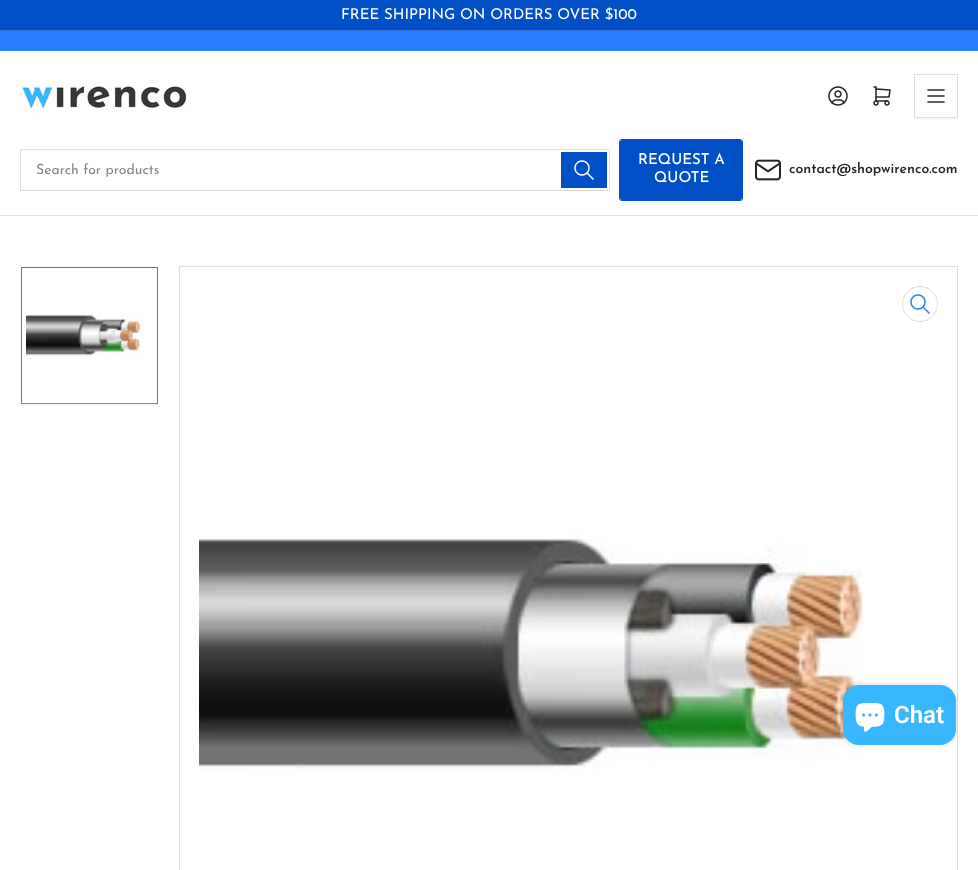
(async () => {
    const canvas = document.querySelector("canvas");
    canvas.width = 978;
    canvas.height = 870;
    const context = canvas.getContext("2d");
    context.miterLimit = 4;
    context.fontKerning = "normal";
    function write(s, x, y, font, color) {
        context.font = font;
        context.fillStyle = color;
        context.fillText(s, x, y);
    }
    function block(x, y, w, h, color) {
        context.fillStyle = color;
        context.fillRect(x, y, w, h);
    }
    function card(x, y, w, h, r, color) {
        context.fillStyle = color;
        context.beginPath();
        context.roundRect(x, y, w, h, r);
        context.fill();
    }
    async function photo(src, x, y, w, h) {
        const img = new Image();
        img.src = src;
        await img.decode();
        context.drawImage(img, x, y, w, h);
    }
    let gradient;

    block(0, 0, 978, 870, "rgb(255, 255, 255)");
    block(0, 0, 978, 30, "rgb(0, 79, 199)");
    block(0, 30, 978, 1, "rgb(51, 114, 210)");
    write("FREE SHIPPING ON ORDERS OVER $100", 341, 19, "15px Josefin Sans", "rgb(255, 255, 255)");
    block(0, 31, 978, 20, "rgb(40, 125, 255)");
    block(0, 215, 978, 1, "rgb(223, 223, 223)");
    await photo("media/1.png", 20, 82, 168, 32);
    await photo("media/2.png", 828, 86, 20, 20);
    await photo("media/3.png", 873, 86, 18, 20);
    block(914, 118, 44, 2, "rgb(249, 249, 249)");
    context.strokeStyle = "rgb(223, 223, 223)";
    context.strokeRect(914.5, 74.5, 43, 43);
    await photo("media/4.png", 927, 89, 18, 14);
    context.strokeRect(20.5, 149.5, 589, 41);
    write("Search for products", 36, 174, "14px Josefin Sans", "rgb(133, 133, 133)");
    context.strokeStyle = "rgb(0, 79, 199)";
    context.strokeRect(561.5, 152.5, 45, 35);
    block(562, 153, 44, 34, "rgb(0, 79, 199)");
    await photo("media/5.png", 574, 160, 20, 20);
    context.beginPath();
    context.roundRect(619.5, 139.5, 123, 61, 2.5);
    context.stroke();
    card(620, 140, 122, 60, 2, "rgb(0, 79, 199)");
    write("REQUEST A", 638, 164, "500 15px Josefin Sans", "rgb(255, 255, 255)");
    write("QUOTE", 654, 182, "500 15px Josefin Sans", "rgb(255, 255, 255)");
    await photo("media/6.png", 755, 159, 26, 22);
    write("contact@shopwirenco.com", 789, 173, "600 14px Josefin Sans", "rgb(35, 35, 35)");
    block(21, 404, 137, 2, "rgb(249, 249, 249)");
    context.strokeStyle = "rgb(40, 125, 255)";
    context.strokeRect(21.5, 267.5, 136, 136);
    await photo("media/7.png", 26, 314, 116, 42);
    gradient = context.createLinearGradient(90, 435, 90, 400);
    gradient.addColorStop(0, "rgb(255, 255, 255)");
    gradient.addColorStop(1, "rgba(255, 255, 255, 0)");
    context.fillStyle = gradient;
    context.fillRect(21, 401, 137, 3);
    context.strokeStyle = "rgb(223, 223, 223)";
    context.strokeRect(179.5, 266.5, 778, 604);
    context.beginPath();
    context.arc(920, 304, 17.5, 0, Math.PI * 2);
    context.stroke();
    await photo("media/8.png", 910, 294, 20, 20);
    await photo("media/9.png", 199, 535, 665, 234);
    context.fillStyle = "rgba(0, 0, 0, 0.15)";
    context.filter = "blur(2.5px)";
    context.beginPath();
    context.roundRect(843, 685, 113, 60, 16);
    context.fill();
    context.filter = "none";
    card(843, 685, 113, 60, 16, "rgb(56, 182, 255)");
    await photo("media/10.png", 855, 703, 30, 29);
    write("Chat", 894, 723, "600 24px Roboto", "rgb(255, 255, 255)");
})();
